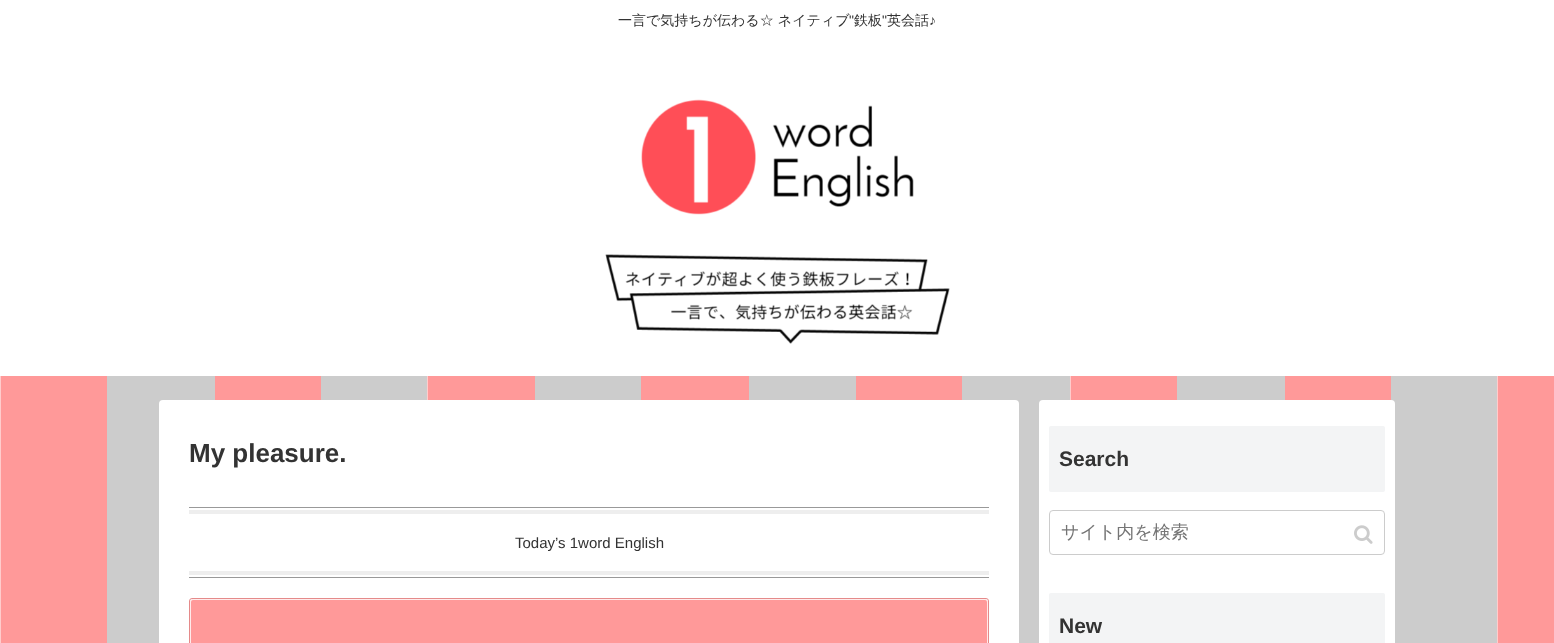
(async () => {
    const canvas = document.querySelector("canvas");
    canvas.width = 1554;
    canvas.height = 643;
    const context = canvas.getContext("2d");
    context.miterLimit = 4;
    context.fontKerning = "normal";
    function write(s, x, y, font, color) {
        context.font = font;
        context.fillStyle = color;
        context.fillText(s, x, y);
    }
    function block(x, y, w, h, color) {
        context.fillStyle = color;
        context.fillRect(x, y, w, h);
    }
    function card(x, y, w, h, r, color) {
        context.fillStyle = color;
        context.beginPath();
        context.roundRect(x, y, w, h, r);
        context.fill();
    }
    async function photo(src, x, y, w, h) {
        const img = new Image();
        img.src = src;
        await img.decode();
        context.drawImage(img, x, y, w, h);
    }

    block(0, 0, 1554, 643, "rgb(255, 255, 255)");
    await photo("media/1.png", 0, 376, 1554, 267);
    write("一言で気持ちが伝わる☆ ネイティブ", 618, 25, "500 14px WenQuanYi Zen Hei", "rgb(51, 51, 51)");
    write("\"", 849, 25, "14px Liberation Sans", "rgb(51, 51, 51)");
    write("鉄板", 854, 25, "500 14px WenQuanYi Zen Hei", "rgb(51, 51, 51)");
    write("\"", 882, 25, "14px Liberation Sans", "rgb(51, 51, 51)");
    write("英会話", 887, 25, "500 14px WenQuanYi Zen Hei", "rgb(51, 51, 51)");
    write("♪", 929, 25, "14px Liberation Sans", "rgb(51, 51, 51)");
    await photo("media/2.png", 605, 99, 345, 245);
    card(159, 400, 860, 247, 4, "rgb(255, 255, 255)");
    write("My pleasure.", 189, 462, "bold 26px Liberation Sans", "rgb(51, 51, 51)");
    block(189, 507, 800, 1, "rgb(153, 153, 153)");
    block(189, 577, 800, 1, "rgb(153, 153, 153)");
    block(189, 510, 800, 4, "rgb(238, 238, 238)");
    block(189, 571, 800, 4, "rgb(238, 238, 238)");
    write("Today’s 1word English", 515, 548, "15px Liberation Sans", "rgb(51, 51, 51)");
    context.beginPath();
    context.roundRect(189.5, 598.5, 799, 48, 2.5);
    context.strokeStyle = "rgb(229, 138, 138)";
    context.stroke();
    context.fillStyle = "rgb(255, 153, 153)";
    context.beginPath();
    context.roundRect(190.5, 599.5, 797, 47, 2.5);
    context.fill();
    context.strokeStyle = "rgb(255, 235, 235)";
    context.stroke();
    card(1039, 400, 356, 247, 4, "rgb(255, 255, 255)");
    card(1049, 426, 336, 66, 2, "rgb(243, 244, 245)");
    write("Search", 1059, 466, "bold 21px Liberation Sans", "rgb(51, 51, 51)");
    context.beginPath();
    context.roundRect(1049.5, 510.5, 335, 44, 3.5);
    context.strokeStyle = "rgb(204, 204, 204)";
    context.stroke();
    write("サイト内を検索", 1061, 538, "500 18px WenQuanYi Zen Hei", "rgb(117, 117, 117)");
    await photo("media/3.png", 1354, 525, 19, 19);
    card(1049, 593, 336, 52, 2, "rgb(243, 244, 245)");
    write("New", 1059, 633, "bold 21px Liberation Sans", "rgb(51, 51, 51)");
})();
